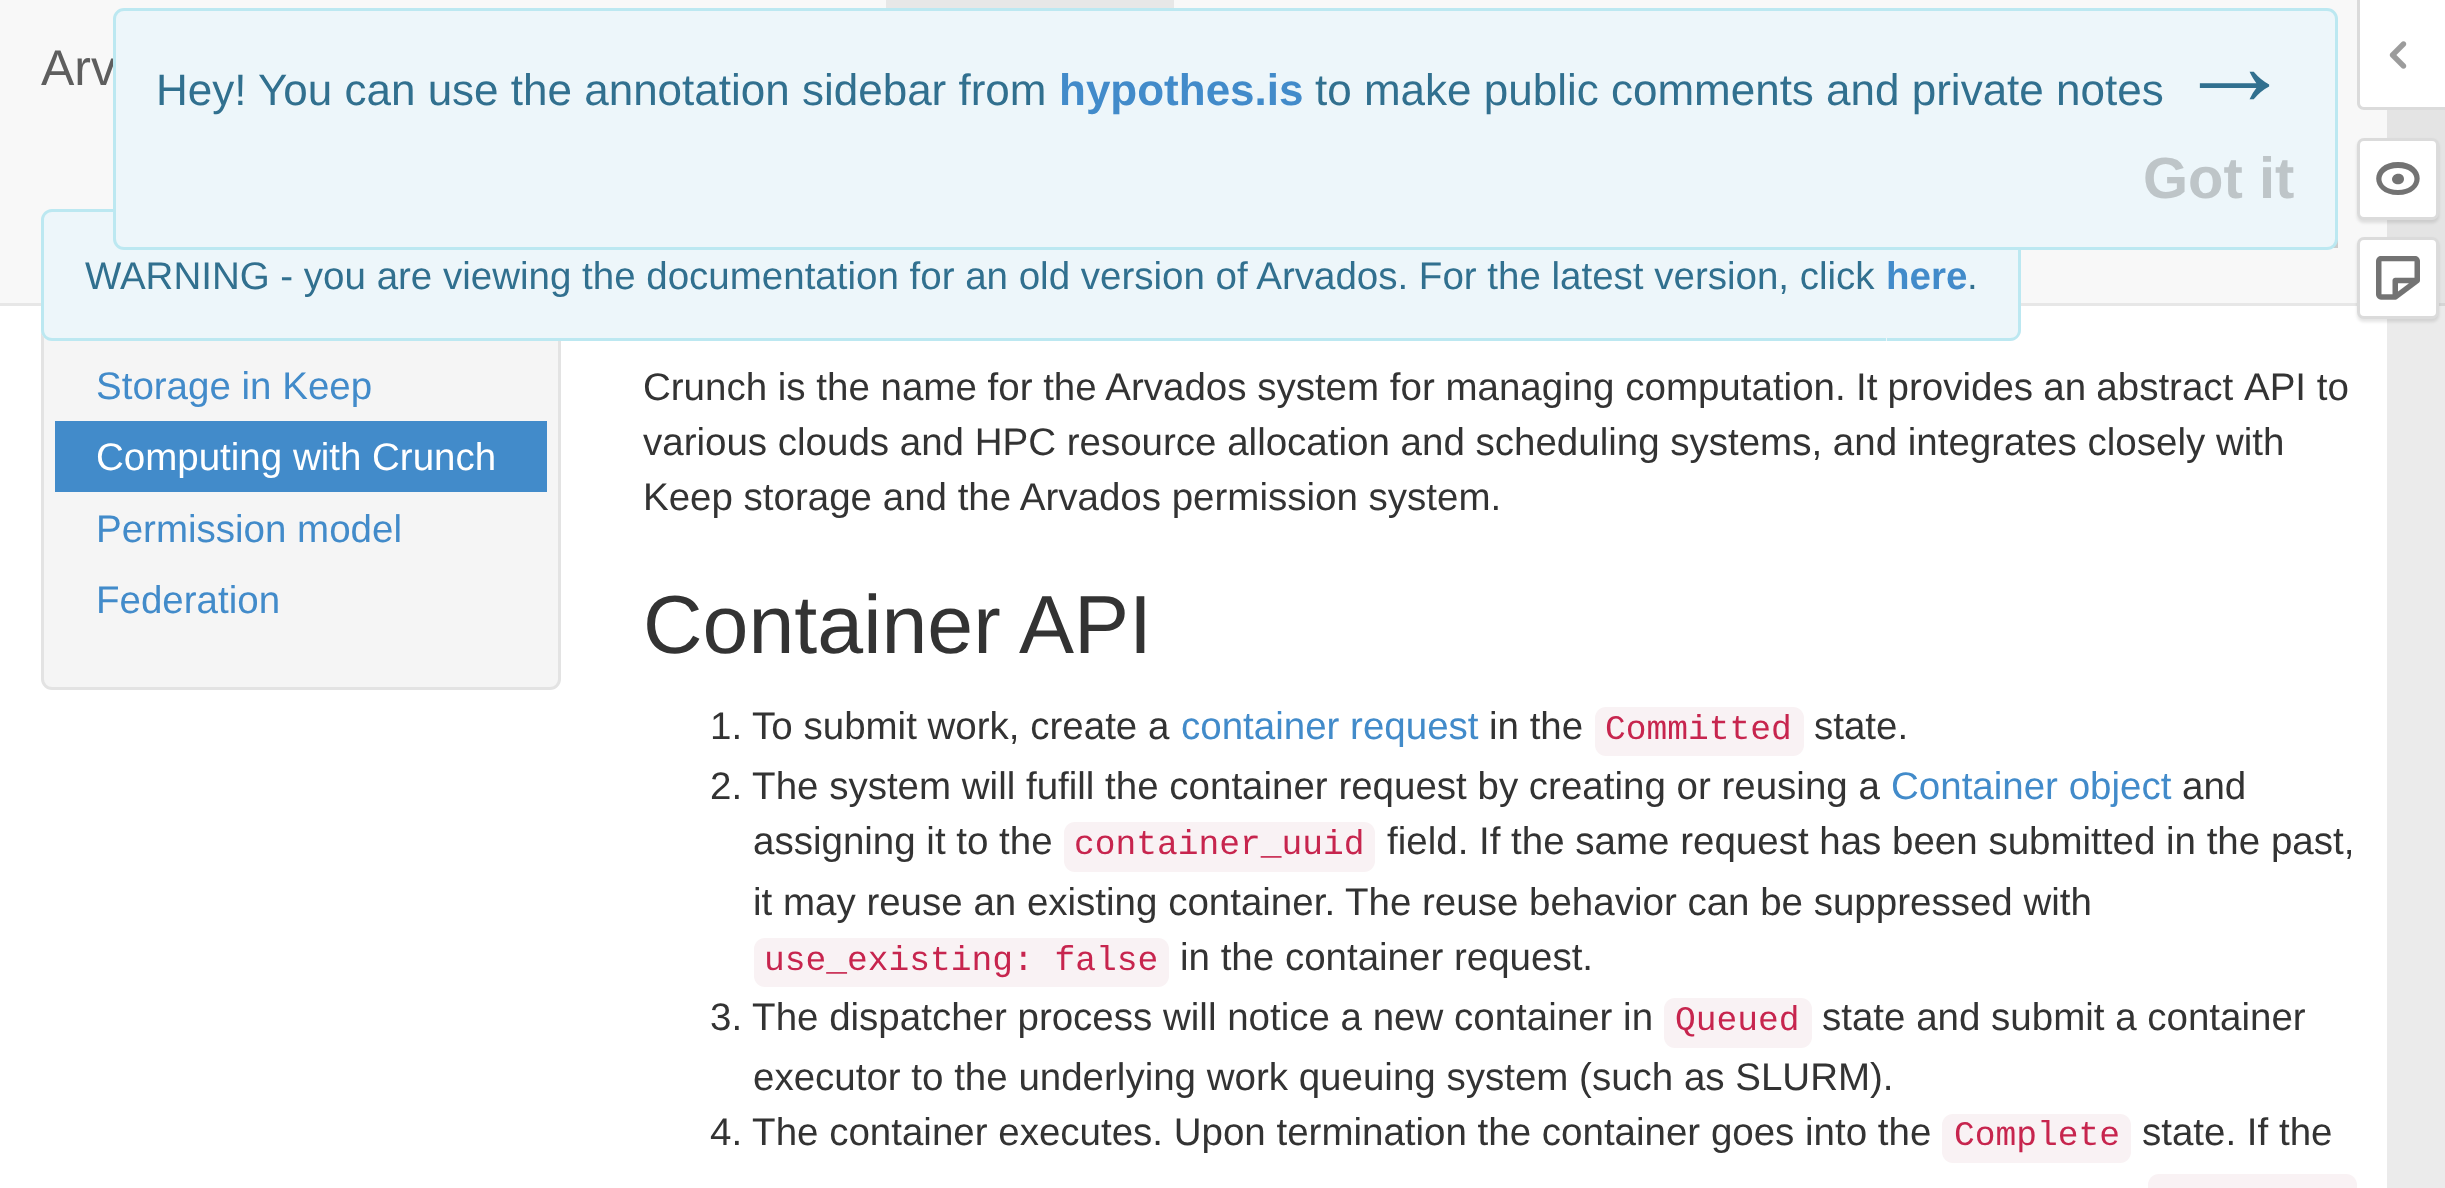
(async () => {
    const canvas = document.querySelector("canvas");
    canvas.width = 2445;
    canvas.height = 1188;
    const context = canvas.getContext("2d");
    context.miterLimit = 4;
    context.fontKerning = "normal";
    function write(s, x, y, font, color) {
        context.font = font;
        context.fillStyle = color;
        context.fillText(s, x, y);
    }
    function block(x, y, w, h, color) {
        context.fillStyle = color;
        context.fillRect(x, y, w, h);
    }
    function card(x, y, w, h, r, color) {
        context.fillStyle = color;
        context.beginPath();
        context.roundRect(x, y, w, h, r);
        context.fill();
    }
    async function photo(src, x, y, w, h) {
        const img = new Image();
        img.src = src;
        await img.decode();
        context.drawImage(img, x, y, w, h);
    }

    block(0, 0, 2445, 1188, "rgb(255, 255, 255)");
    block(2387, 306, 58, 882, "rgb(235, 235, 235)");
    context.fillStyle = "rgb(245, 245, 245)";
    context.beginPath();
    context.roundRect(42.5, 169.5, 517, 519, 9.5);
    context.fill();
    context.strokeStyle = "rgb(227, 227, 227)";
    context.lineWidth = 3;
    context.stroke();
    block(0, 0, 2387, 303, "rgb(248, 248, 248)");
    block(2387, 110, 58, 193, "rgb(228, 228, 228)");
    block(0, 303, 2357, 3, "rgb(231, 231, 231)");
    block(2439, 303, 6, 3, "rgb(213, 213, 213)");
    write("Arv", 41, 85, "50px Liberation Sans", "rgb(94, 94, 94)");
    block(886, 0, 288, 8, "rgb(231, 231, 231)");
    context.strokeStyle = "rgb(204, 204, 204)";
    context.strokeRect(2196.5, 155.5, 140, 91);
    context.fillStyle = "rgb(237, 246, 250)";
    context.beginPath();
    context.roundRect(41, 209, 1846, 132, [11, 0, 0, 11]);
    context.fill();
    context.fillStyle = "rgb(188, 232, 241)";
    context.beginPath();
    context.moveTo(52, 209);
    context.lineTo(1886, 209);
    context.lineTo(1886, 341);
    context.lineTo(52, 341);
    context.bezierCurveTo(46, 341, 41, 336, 41, 330);
    context.lineTo(41, 220);
    context.bezierCurveTo(41, 214, 46, 209, 52, 209);
    context.closePath();
    context.moveTo(52, 212);
    context.lineTo(1886, 212);
    context.lineTo(1886, 338);
    context.lineTo(52, 338);
    context.bezierCurveTo(48, 338, 44, 335, 44, 330);
    context.lineTo(44, 220);
    context.bezierCurveTo(44, 215, 48, 212, 52, 212);
    context.closePath();
    context.fill("evenodd");
    context.fillStyle = "rgb(237, 246, 250)";
    context.beginPath();
    context.roundRect(1966, 209, 55, 132, [0, 11, 11, 0]);
    context.fill();
    context.fillStyle = "rgb(188, 232, 241)";
    context.beginPath();
    context.moveTo(1966, 209);
    context.lineTo(2010, 209);
    context.bezierCurveTo(2016, 209, 2021, 214, 2021, 220);
    context.lineTo(2021, 330);
    context.bezierCurveTo(2021, 336, 2016, 341, 2010, 341);
    context.lineTo(1966, 341);
    context.closePath();
    context.moveTo(1966, 212);
    context.lineTo(2010, 212);
    context.bezierCurveTo(2015, 212, 2018, 215, 2018, 220);
    context.lineTo(2018, 330);
    context.bezierCurveTo(2018, 335, 2015, 338, 2010, 338);
    context.lineTo(1966, 338);
    context.closePath();
    context.fill("evenodd");
    context.fillStyle = "rgb(237, 246, 250)";
    context.beginPath();
    context.roundRect(114.5, 9.5, 2222, 239, 9.5);
    context.fill();
    context.strokeStyle = "rgb(188, 232, 241)";
    context.stroke();
    write("Hey!", 156, 105, "44px Liberation Sans", "rgb(49, 112, 143)");
    write("You can use the annotation sidebar from", 258, 105, "44px Liberation Sans", "rgb(49, 112, 143)");
    write("hypothes.is", 1059, 105, "bold 44px Liberation Sans", "rgb(66, 139, 202)");
    write("to make public comments and private notes", 1315, 105, "44px Liberation Sans", "rgb(49, 112, 143)");
    write("→", 2176, 105, "117px Liberation Sans", "rgb(49, 112, 143)");
    write("Got it", 2143, 198, "bold 58px Liberation Sans", "rgb(190, 197, 200)");
    write("WARNING - you are viewing the documentation for an old version of Arvados. For the latest version, click", 85, 289, "38.5px Liberation Sans", "rgb(49, 112, 143)");
    block(1887, 250, 79, 88, "rgb(237, 246, 250)");
    write("here", 1886, 289, "bold 38.5px Liberation Sans", "rgb(66, 139, 202)");
    write(".", 1967, 289, "38.5px Liberation Sans", "rgb(49, 112, 143)");
    block(1887, 338, 79, 3, "rgb(188, 232, 241)");
    context.fillStyle = "rgb(255, 255, 255)";
    context.beginPath();
    context.moveTo(2360, 0);
    context.lineTo(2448, 0);
    context.lineTo(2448, 107);
    context.lineTo(2364, 107);
    context.bezierCurveTo(2362, 107, 2360, 105, 2360, 103);
    context.closePath();
    context.fill();
    context.fillStyle = "rgb(219, 219, 219)";
    context.beginPath();
    context.moveTo(2357, 0);
    context.lineTo(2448, 0);
    context.lineTo(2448, 110);
    context.lineTo(2364, 110);
    context.bezierCurveTo(2360, 110, 2357, 107, 2357, 103);
    context.closePath();
    context.moveTo(2360, 0);
    context.lineTo(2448, 0);
    context.lineTo(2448, 107);
    context.lineTo(2364, 107);
    context.bezierCurveTo(2361, 107, 2360, 105, 2360, 103);
    context.closePath();
    context.fill("evenodd");
    await photo("media/1.png", 2389, 41, 18, 28);
    context.fillStyle = "rgba(0, 0, 0, 0.1)";
    context.filter = "blur(1.5px)";
    context.beginPath();
    context.roundRect(2357, 140, 82, 83, 7);
    context.fill();
    context.filter = "none";
    context.fillStyle = "rgb(255, 255, 255)";
    context.beginPath();
    context.roundRect(2358.5, 139.5, 79, 79, 5.5);
    context.fill();
    context.strokeStyle = "rgb(219, 219, 219)";
    context.stroke();
    context.fillStyle = "rgb(115, 115, 115)";
    context.beginPath();
    context.moveTo(2398, 162);
    context.bezierCurveTo(2427, 162, 2427, 195, 2398, 195);
    context.bezierCurveTo(2369, 195, 2369, 162, 2398, 162);
    context.moveTo(2398, 168);
    context.bezierCurveTo(2376, 168, 2376, 190, 2398, 190);
    context.bezierCurveTo(2420, 190, 2420, 168, 2398, 168);
    context.moveTo(2404, 179);
    context.bezierCurveTo(2404, 172, 2393, 172, 2392, 179);
    context.bezierCurveTo(2392, 186, 2404, 186, 2404, 179);
    context.fill("evenodd");
    context.fillStyle = "rgba(0, 0, 0, 0.1)";
    context.filter = "blur(1.5px)";
    context.beginPath();
    context.roundRect(2357, 239, 82, 83, 7);
    context.fill();
    context.filter = "none";
    context.fillStyle = "rgb(255, 255, 255)";
    context.beginPath();
    context.roundRect(2358.5, 238.5, 79, 79, 5.5);
    context.fill();
    context.stroke();
    await photo("media/2.png", 2376, 256, 44, 44);
    write("Storage in Keep", 96, 399, "38.5px Liberation Sans", "rgb(66, 139, 202)");
    block(55, 421, 492, 71, "rgb(66, 139, 202)");
    write("Computing with Crunch", 96, 470, "38.5px Liberation Sans", "rgb(255, 255, 255)");
    write("Permission model", 96, 542, "38.5px Liberation Sans", "rgb(66, 139, 202)");
    write("Federation", 96, 613, "38.5px Liberation Sans", "rgb(66, 139, 202)");
    write("Crunch is the name for the Arvados system for managing computation.", 643, 400, "38.5px Liberation Sans", "rgb(51, 51, 51)");
    context.wordSpacing = "-0.5px";
    write("It provides an abstract", 1856, 400, "38.5px Liberation Sans", "rgb(51, 51, 51)");
    context.wordSpacing = "0px";
    write("API to", 2244, 400, "38.5px Liberation Sans", "rgb(51, 51, 51)");
    write("various clouds and HPC resource allocation and scheduling systems, and integrates closely with", 643, 455, "38.5px Liberation Sans", "rgb(51, 51, 51)");
    write("Keep storage and the Arvados permission system.", 643, 510, "38.5px Liberation Sans", "rgb(51, 51, 51)");
    write("Container", 643, 653, "82.5px Liberation Sans", "rgb(51, 51, 51)");
    write("API", 1019, 653, "82.5px Liberation Sans", "rgb(51, 51, 51)");
    write("1. To submit work, create a", 710, 739, "38.5px Liberation Sans", "rgb(51, 51, 51)");
    write("container request", 1181, 739, "38.5px Liberation Sans", "rgb(66, 139, 202)");
    write("in the", 1489, 739, "38.5px Liberation Sans", "rgb(51, 51, 51)");
    card(1595, 707, 209, 49, 11, "rgb(249, 242, 244)");
    write("Committed", 1605, 739, "34.6px Liberation Mono", "rgb(199, 37, 78)");
    write("state.", 1814, 739, "38.5px Liberation Sans", "rgb(51, 51, 51)");
    write("2. The system will fufill the container request by creating or reusing a", 710, 799, "38.5px Liberation Sans", "rgb(51, 51, 51)");
    write("Container object", 1891, 799, "38.5px Liberation Sans", "rgb(66, 139, 202)");
    write("and", 2182, 799, "38.5px Liberation Sans", "rgb(51, 51, 51)");
    write("assigning it to the", 753, 854, "38.5px Liberation Sans", "rgb(51, 51, 51)");
    card(1064, 822, 311, 50, 11, "rgb(249, 242, 244)");
    write("container_uuid", 1074, 854, "34.6px Liberation Mono", "rgb(199, 37, 78)");
    write("field. If the same request has been submitted in the past,", 1387, 854, "38.5px Liberation Sans", "rgb(51, 51, 51)");
    write("it may reuse an existing container.", 753, 915, "38.5px Liberation Sans", "rgb(51, 51, 51)");
    write("The reuse behavior can be suppressed with", 1345, 915, "38.5px Liberation Sans", "rgb(51, 51, 51)");
    card(754, 938, 415, 49, 11, "rgb(249, 242, 244)");
    write("use_existing: false", 764, 970, "34.6px Liberation Mono", "rgb(199, 37, 78)");
    write("in the container request.", 1180, 970, "38.5px Liberation Sans", "rgb(51, 51, 51)");
    write("3. The dispatcher process will notice a new container in", 710, 1030, "38.5px Liberation Sans", "rgb(51, 51, 51)");
    card(1664, 998, 148, 50, 11, "rgb(249, 242, 244)");
    write("Queued", 1675, 1030, "34.6px Liberation Mono", "rgb(199, 37, 78)");
    write("state and submit a container", 1822, 1030, "38.5px Liberation Sans", "rgb(51, 51, 51)");
    write("executor to the underlying work queuing system (such as SLURM).", 753, 1090, "38.5px Liberation Sans", "rgb(51, 51, 51)");
    write("4. The container executes. Upon termination the container goes into the", 710, 1145, "38.5px Liberation Sans", "rgb(51, 51, 51)");
    card(1942, 1114, 189, 49, 11, "rgb(249, 242, 244)");
    write("Complete", 1954, 1145, "34.6px Liberation Mono", "rgb(199, 37, 78)");
    write("state. If the", 2142, 1145, "38.5px Liberation Sans", "rgb(51, 51, 51)");
    card(2148, 1174, 209, 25, 11, "rgb(249, 242, 244)");
})();
